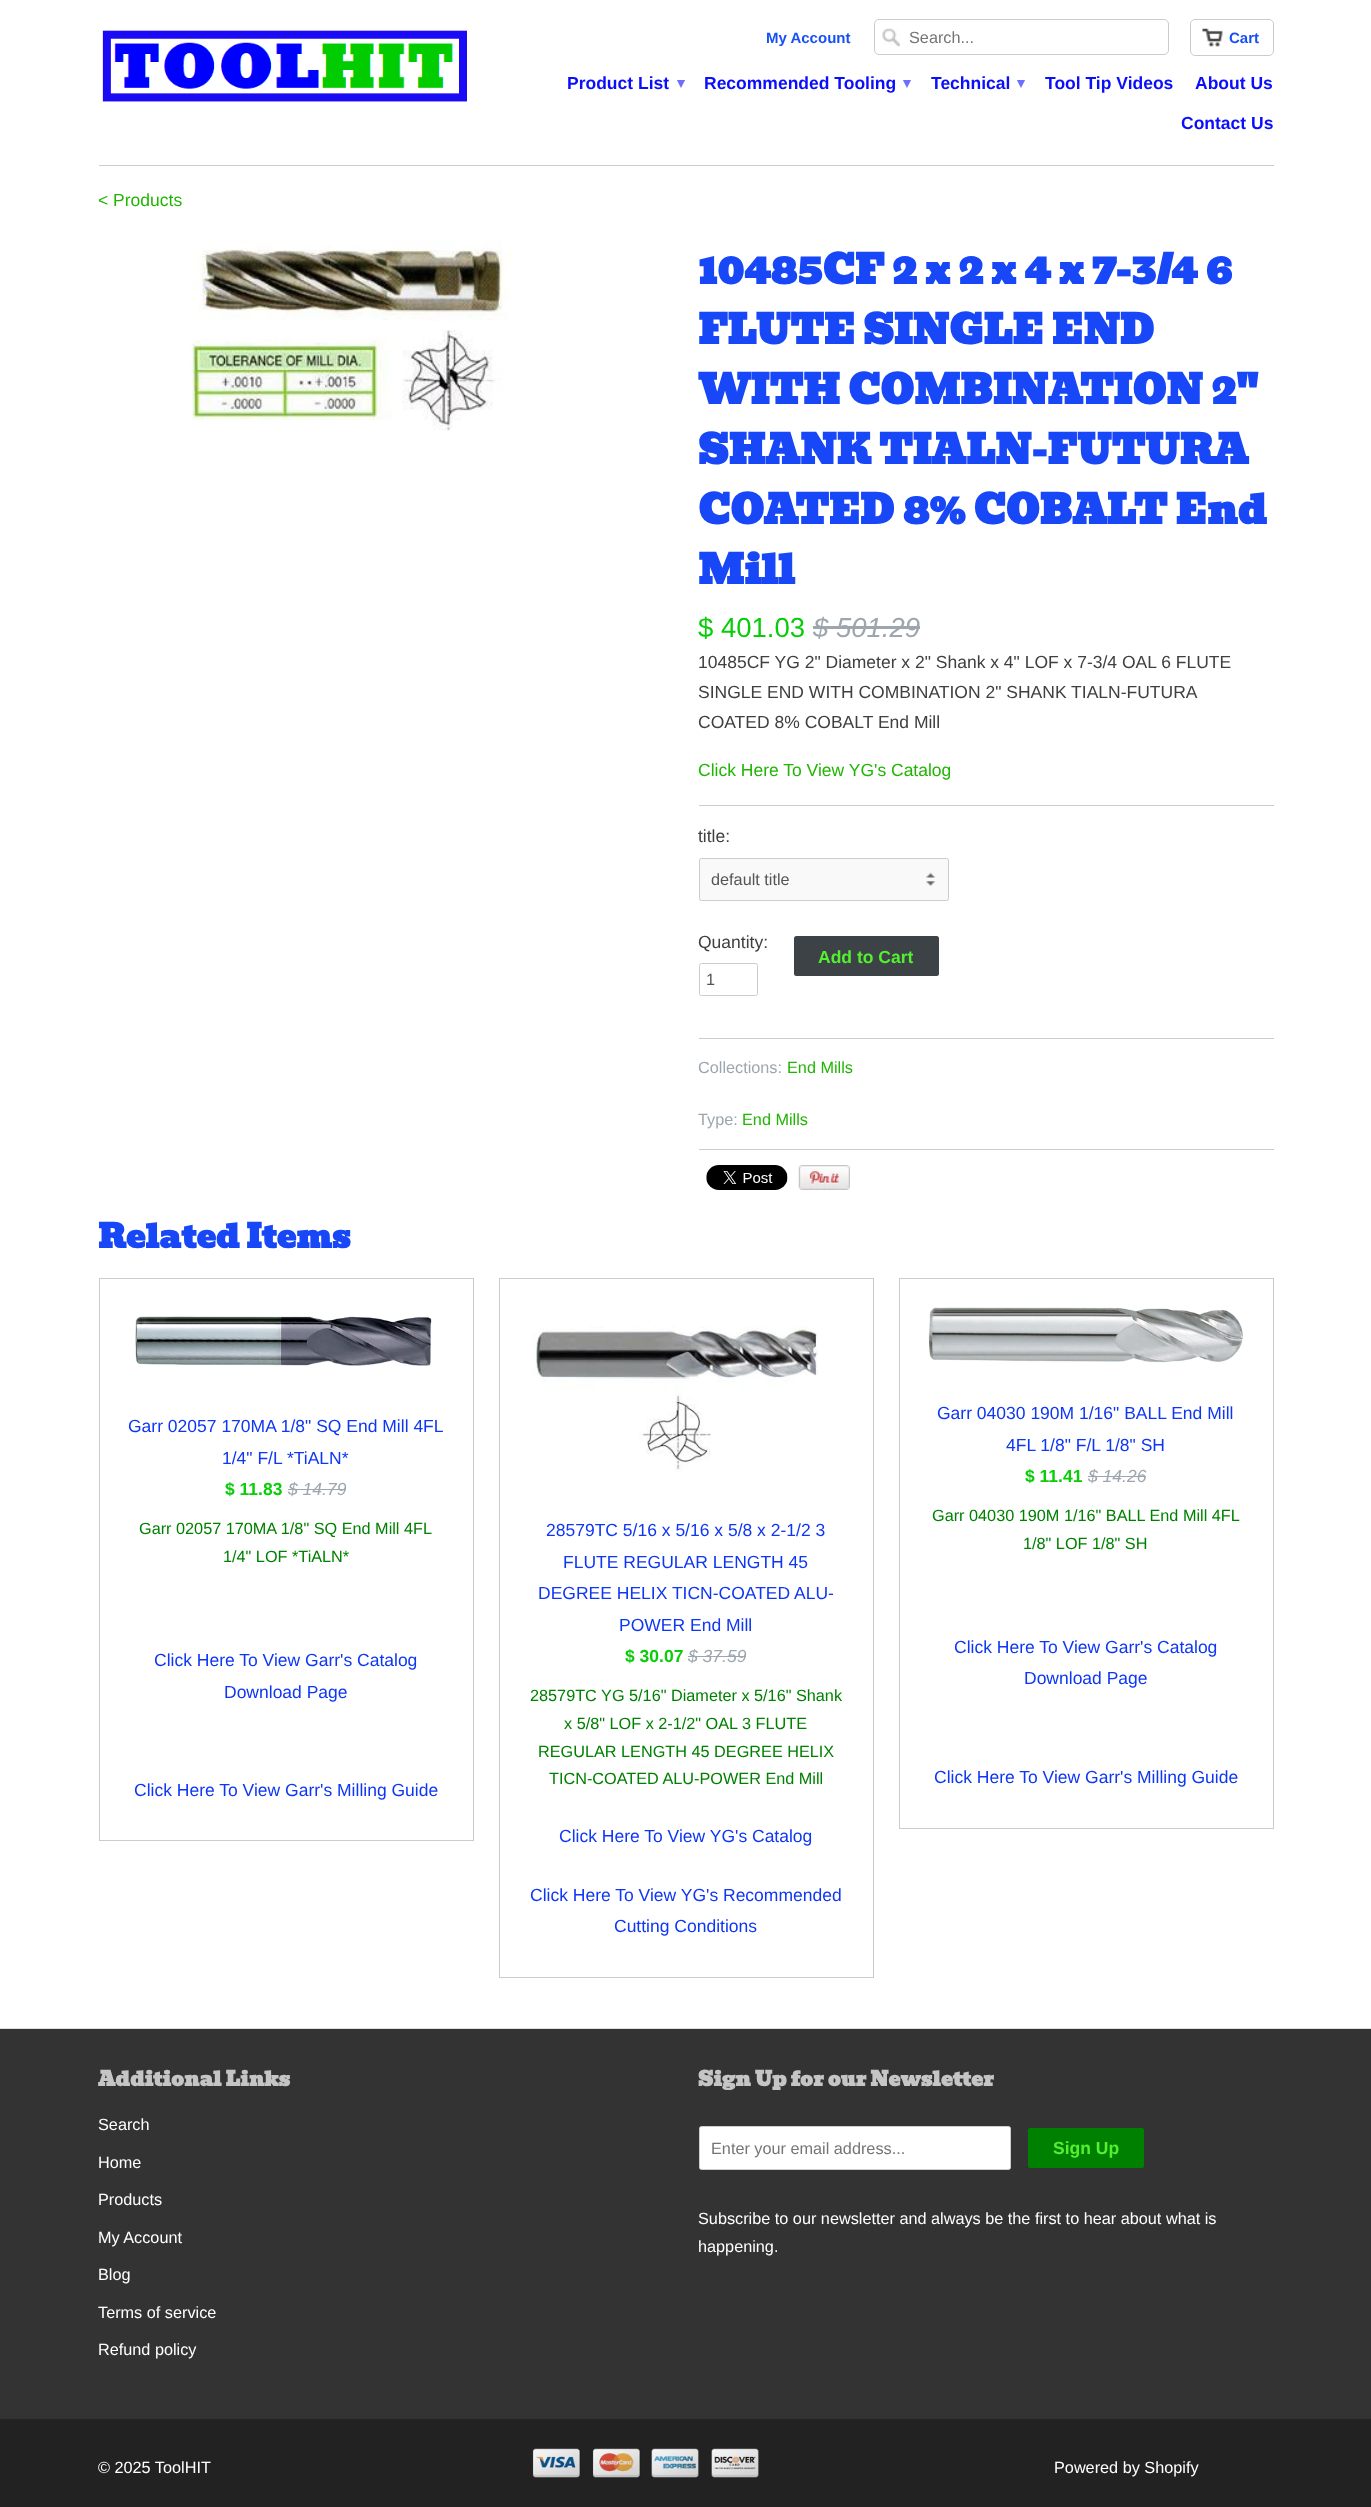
(async () => {
    const canvas = document.querySelector("canvas");
    canvas.width = 1371;
    canvas.height = 2507;
    const context = canvas.getContext("2d");
    context.miterLimit = 4;
    context.fontKerning = "normal";
    function write(s, x, y, font, color) {
        context.font = font;
        context.fillStyle = color;
        context.fillText(s, x, y);
    }
    function block(x, y, w, h, color) {
        context.fillStyle = color;
        context.fillRect(x, y, w, h);
    }
    function card(x, y, w, h, r, color) {
        context.fillStyle = color;
        context.beginPath();
        context.roundRect(x, y, w, h, r);
        context.fill();
    }
    async function photo(src, x, y, w, h) {
        const img = new Image();
        img.src = src;
        await img.decode();
        context.drawImage(img, x, y, w, h);
    }

    block(0, 0, 1371, 2507, "rgb(255, 255, 255)");
    block(99, 165, 1175, 1, "rgb(204, 204, 204)");
    await photo("media/1.png", 102, 30, 365, 72);
    write("My Account", 766, 43, "bold 15px Liberation Sans", "rgb(23, 80, 246)");
    await photo("media/2.png", 882, 28, 18, 19);
    context.beginPath();
    context.roundRect(874.5, 19.5, 294, 35, 4.5);
    context.strokeStyle = "rgb(204, 204, 204)";
    context.stroke();
    write("Search...", 909, 43, "16.25px Liberation Sans", "rgb(117, 117, 117)");
    await photo("media/3.png", 1202, 28, 21, 19);
    context.beginPath();
    context.roundRect(1190.5, 19.5, 83, 36, 4.5);
    context.stroke();
    write("Cart", 1229, 43, "bold 15px Liberation Sans", "rgb(23, 80, 246)");
    write("Product List", 567, 89, "bold 17.5px Liberation Sans", "rgb(11, 14, 253)");
    write("▾", 677, 88, "bold 15px DejaVu Sans", "rgb(109, 110, 254)");
    write("Recommended Tooling", 704, 89, "bold 17.5px Liberation Sans", "rgb(11, 14, 253)");
    write("▾", 903, 88, "bold 15px DejaVu Sans", "rgb(109, 110, 254)");
    write("Technical", 931, 89, "bold 17.5px Liberation Sans", "rgb(11, 14, 253)");
    write("▾", 1017, 88, "bold 15px DejaVu Sans", "rgb(109, 110, 254)");
    write("Tool Tip Videos", 1045, 89, "bold 17.5px Liberation Sans", "rgb(11, 14, 253)");
    write("About Us", 1195, 89, "bold 17.5px Liberation Sans", "rgb(11, 14, 253)");
    write("Contact Us", 1181, 129, "bold 17.5px Liberation Sans", "rgb(11, 14, 253)");
    write("< Products", 98, 206, "17.5px Liberation Sans", "rgb(33, 181, 3)");
    await photo("media/4.png", 191, 240, 321, 191);
    write("10485CF 2 x 2 x 4 x 7-3/4 6", 698, 284, "bold 40px Bevan", "rgb(23, 71, 246)");
    write("FLUTE SINGLE END", 698, 344, "bold 40px Bevan", "rgb(23, 71, 246)");
    write("WITH COMBINATION 2\"", 698, 404, "bold 40px Bevan", "rgb(23, 71, 246)");
    write("SHANK TIALN-FUTURA", 698, 464, "bold 40px Bevan", "rgb(23, 71, 246)");
    write("COATED 8% COBALT End", 698, 524, "bold 40px Bevan", "rgb(23, 71, 246)");
    write("Mill", 698, 584, "bold 40px Bevan", "rgb(23, 71, 246)");
    write("$ 401.03", 698, 637, "27.5px Liberation Sans", "rgb(9, 205, 9)");
    write("$ 501.29", 813, 637, "italic 27.5px Liberation Sans", "rgb(157, 166, 174)");
    block(813, 626, 107, 3, "rgb(157, 166, 174)");
    write("10485CF YG 2\" Diameter x 2\" Shank x 4\" LOF x 7-3/4 OAL 6 FLUTE", 698, 668, "17.5px Liberation Sans", "rgb(64, 64, 64)");
    write("SINGLE END WITH COMBINATION 2\" SHANK TIALN-FUTURA", 698, 698, "17.5px Liberation Sans", "rgb(64, 64, 64)");
    write("COATED 8% COBALT End Mill", 698, 728, "17.5px Liberation Sans", "rgb(64, 64, 64)");
    write("Click Here To View YG's Catalog", 698, 776, "17.5px Liberation Sans", "rgb(33, 181, 3)");
    block(699, 805, 575, 1, "rgb(204, 204, 204)");
    write("title:", 698, 842, "17.5px Liberation Sans", "rgb(64, 64, 64)");
    card(699, 858, 250, 43, 2.5, "rgb(249, 249, 249)");
    await photo("media/5.png", 926, 872, 10, 15);
    context.beginPath();
    context.roundRect(699.5, 858.5, 249, 42, 2);
    context.stroke();
    write("default title", 711, 885, "16.25px Liberation Sans", "rgb(85, 85, 85)");
    write("Quantity:", 698, 948, "17.5px Liberation Sans", "rgb(64, 64, 64)");
    context.beginPath();
    context.roundRect(699.5, 963.5, 58, 32, 2);
    context.stroke();
    write("1", 706, 985, "16.25px Liberation Sans", "rgb(85, 85, 85)");
    card(794, 936, 145, 40, 2.5, "rgb(61, 66, 71)");
    write("Add to Cart", 818, 963, "bold 17.5px Liberation Sans", "rgb(84, 240, 48)");
    block(699, 1038, 575, 1, "rgb(204, 204, 204)");
    write("Collections:", 698, 1073, "16.25px Liberation Sans", "rgb(157, 166, 174)");
    write("End Mills", 787, 1073, "16.25px Liberation Sans", "rgb(33, 181, 3)");
    write("Type:", 698, 1125, "16.25px Liberation Sans", "rgb(157, 166, 174)");
    write("End Mills", 742, 1125, "16.25px Liberation Sans", "rgb(33, 181, 3)");
    block(699, 1149, 575, 1, "rgb(204, 204, 204)");
    await photo("media/6.png", 706, 1165, 82, 25);
    await photo("media/7.png", 798, 1165, 52, 25);
    write("Related Items", 98, 1248, "bold 32.5px Bevan", "rgb(23, 71, 246)");
    context.strokeRect(99.5, 1278.5, 374, 562);
    await photo("media/8.png", 135, 1316, 297, 50);
    write("Garr 02057 170MA 1/8\" SQ End Mill 4FL", 128, 1432, "17.5px Liberation Sans", "rgb(14, 54, 245)");
    write("1/4\" F/L *TiALN*", 222, 1464, "17.5px Liberation Sans", "rgb(14, 54, 245)");
    write("$ 11.83", 225, 1495, "bold 17.5px Liberation Sans", "rgb(9, 205, 9)");
    write("$ 14.79", 288, 1495, "italic 17.5px Liberation Sans", "rgb(157, 166, 174)");
    block(288, 1489, 58, 1, "rgb(157, 166, 174)");
    write("Garr 02057 170MA 1/8\" SQ End Mill 4FL", 139, 1534, "16.25px Liberation Sans", "rgb(0, 128, 0)");
    write("1/4\" LOF *TiALN*", 223, 1562, "16.25px Liberation Sans", "rgb(0, 128, 0)");
    write("Click Here To View Garr's Catalog", 154, 1666, "17.5px Liberation Sans", "rgb(14, 54, 245)");
    write("Download Page", 224, 1698, "17.5px Liberation Sans", "rgb(14, 54, 245)");
    write("Click Here To View Garr's Milling Guide", 134, 1796, "17.5px Liberation Sans", "rgb(14, 54, 245)");
    context.strokeRect(499.5, 1278.5, 374, 699);
    await photo("media/9.png", 532, 1326, 286, 146);
    write("28579TC 5/16 x 5/16 x 5/8 x 2-1/2 3", 546, 1536, "17.5px Liberation Sans", "rgb(14, 54, 245)");
    write("FLUTE REGULAR LENGTH 45", 563, 1568, "17.5px Liberation Sans", "rgb(14, 54, 245)");
    write("DEGREE HELIX TICN-COATED ALU-", 538, 1599, "17.5px Liberation Sans", "rgb(14, 54, 245)");
    write("POWER End Mill", 619, 1631, "17.5px Liberation Sans", "rgb(14, 54, 245)");
    write("$ 30.07", 625, 1662, "bold 17.5px Liberation Sans", "rgb(9, 205, 9)");
    write("$ 37.59", 688, 1662, "italic 17.5px Liberation Sans", "rgb(157, 166, 174)");
    block(688, 1656, 58, 1, "rgb(157, 166, 174)");
    write("28579TC YG 5/16\" Diameter x 5/16\" Shank", 530, 1701, "16.25px Liberation Sans", "rgb(0, 128, 0)");
    write("x 5/8\" LOF x 2-1/2\" OAL 3 FLUTE", 564, 1729, "16.25px Liberation Sans", "rgb(0, 128, 0)");
    write("REGULAR LENGTH 45 DEGREE HELIX", 538, 1757, "16.25px Liberation Sans", "rgb(0, 128, 0)");
    write("TICN-COATED ALU-POWER End Mill", 549, 1784, "16.25px Liberation Sans", "rgb(0, 128, 0)");
    write("Click Here To View YG's Catalog", 559, 1842, "17.5px Liberation Sans", "rgb(14, 54, 245)");
    write("Click Here To View YG's Recommended", 530, 1901, "17.5px Liberation Sans", "rgb(14, 54, 245)");
    write("Cutting Conditions", 614, 1932, "17.5px Liberation Sans", "rgb(14, 54, 245)");
    context.strokeRect(899.5, 1278.5, 374, 550);
    await photo("media/10.png", 928, 1307, 315, 56);
    write("Garr 04030 190M 1/16\" BALL End Mill", 937, 1419, "17.5px Liberation Sans", "rgb(14, 54, 245)");
    write("4FL 1/8\" F/L 1/8\" SH", 1006, 1451, "17.5px Liberation Sans", "rgb(14, 54, 245)");
    write("$ 11.41", 1025, 1482, "bold 17.5px Liberation Sans", "rgb(9, 205, 9)");
    write("$ 14.26", 1088, 1482, "italic 17.5px Liberation Sans", "rgb(157, 166, 174)");
    block(1088, 1476, 58, 1, "rgb(157, 166, 174)");
    write("Garr 04030 190M 1/16\" BALL End Mill 4FL", 932, 1521, "16.25px Liberation Sans", "rgb(0, 128, 0)");
    write("1/8\" LOF 1/8\" SH", 1023, 1549, "16.25px Liberation Sans", "rgb(0, 128, 0)");
    write("Click Here To View Garr's Catalog", 954, 1653, "17.5px Liberation Sans", "rgb(14, 54, 245)");
    write("Download Page", 1024, 1684, "17.5px Liberation Sans", "rgb(14, 54, 245)");
    write("Click Here To View Garr's Milling Guide", 934, 1783, "17.5px Liberation Sans", "rgb(14, 54, 245)");
    block(0, 2029, 1371, 390, "rgb(51, 51, 51)");
    block(0, 2028, 1371, 1, "rgb(219, 227, 229)");
    write("Additional Links", 98, 2086, "bold 20px Bevan", "rgb(197, 197, 197)");
    write("Search", 98, 2130, "16.25px Liberation Sans", "rgb(255, 255, 255)");
    write("Home", 98, 2168, "16.25px Liberation Sans", "rgb(255, 255, 255)");
    write("Products", 98, 2205, "16.25px Liberation Sans", "rgb(255, 255, 255)");
    write("My Account", 98, 2243, "16.25px Liberation Sans", "rgb(255, 255, 255)");
    write("Blog", 98, 2280, "16.25px Liberation Sans", "rgb(255, 255, 255)");
    write("Terms of service", 98, 2318, "16.25px Liberation Sans", "rgb(255, 255, 255)");
    write("Refund policy", 98, 2355, "16.25px Liberation Sans", "rgb(255, 255, 255)");
    write("Sign Up for our Newsletter", 698, 2086, "bold 20px Bevan", "rgb(197, 197, 197)");
    context.fillStyle = "rgb(255, 255, 255)";
    context.beginPath();
    context.roundRect(699.5, 2126.5, 311, 43, 2);
    context.fill();
    context.stroke();
    write("Enter your email address...", 711, 2154, "16.25px Liberation Sans", "rgb(117, 117, 117)");
    card(1028, 2128, 116, 40, 2.5, "rgb(0, 128, 0)");
    write("Sign Up", 1053, 2154, "bold 17.5px Liberation Sans", "rgb(84, 240, 48)");
    write("Subscribe to our newsletter and always be the first to hear about what is", 698, 2224, "16.25px Liberation Sans", "rgb(255, 255, 255)");
    write("happening.", 698, 2252, "16.25px Liberation Sans", "rgb(255, 255, 255)");
    block(0, 2419, 1371, 88, "rgb(34, 34, 34)");
    write("© 2025 ToolHIT", 98, 2473, "16.25px Liberation Sans", "rgb(255, 255, 255)");
    await photo("media/11.png", 532, 2448, 49, 30);
    await photo("media/12.png", 592, 2448, 49, 30);
    await photo("media/13.png", 651, 2448, 48, 30);
    await photo("media/14.png", 711, 2448, 48, 30);
    write("Powered by Shopify", 1054, 2473, "16.25px Liberation Sans", "rgb(255, 255, 255)");
})();
